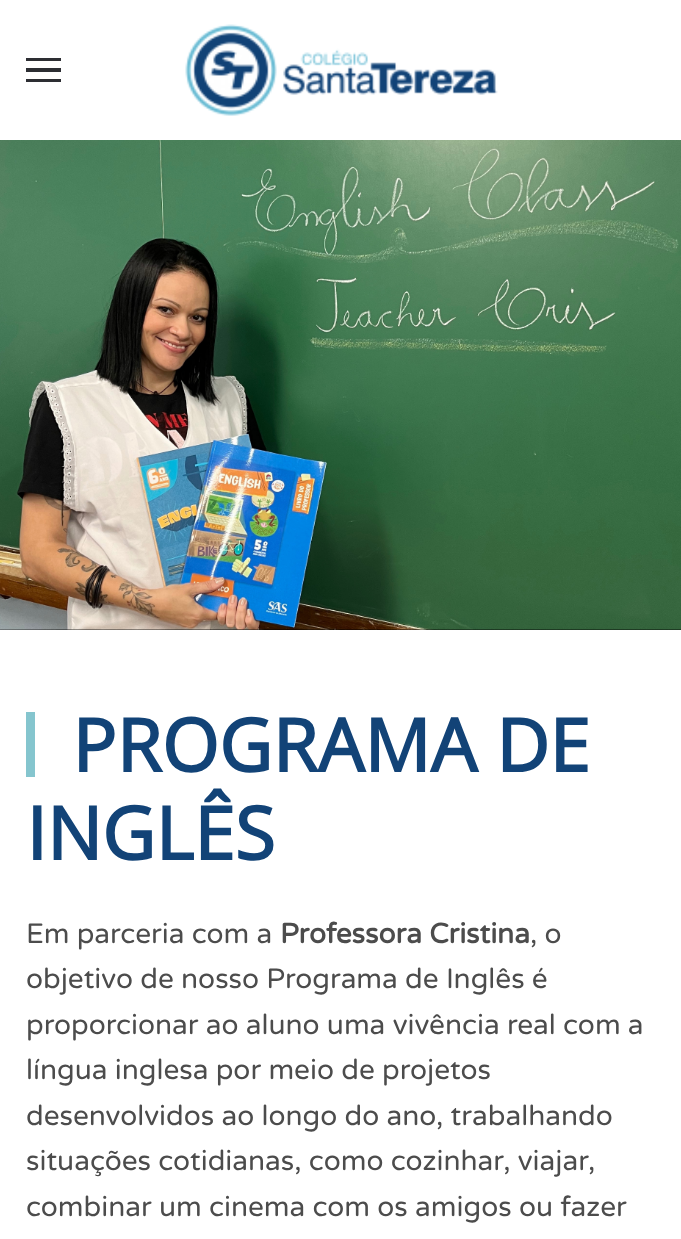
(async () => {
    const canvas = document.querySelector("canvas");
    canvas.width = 681;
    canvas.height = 1239;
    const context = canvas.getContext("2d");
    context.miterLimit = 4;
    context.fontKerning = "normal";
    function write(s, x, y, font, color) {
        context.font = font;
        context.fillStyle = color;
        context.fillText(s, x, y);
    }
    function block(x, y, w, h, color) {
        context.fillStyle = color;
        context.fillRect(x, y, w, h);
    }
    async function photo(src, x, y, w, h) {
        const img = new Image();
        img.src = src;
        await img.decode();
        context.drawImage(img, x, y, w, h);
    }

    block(0, 0, 681, 1239, "rgb(255, 255, 255)");
    block(26, 58, 35, 3, "rgb(45, 46, 51)");
    block(26, 68, 35, 4, "rgb(45, 46, 51)");
    block(26, 79, 35, 3, "rgb(45, 46, 51)");
    await photo("media/1.png", 185, 24, 313, 92);
    await photo("media/2.png", 0, 140, 681, 490);
    block(26, 712, 9, 65, "rgb(133, 197, 206)");
    write("PROGRAMA DE", 72, 772, "bold 73.5px Open Sans", "rgb(18, 67, 119)");
    write("INGLÊS", 26, 860, "bold 73.5px Open Sans", "rgb(18, 67, 119)");
    write("Em parceria com a", 26, 943, "28px Varela Round", "rgb(76, 76, 76)");
    write("Professora Cristina", 280, 943, "bold 28px Varela Round", "rgb(76, 76, 76)");
    write(", o", 530, 943, "28px Varela Round", "rgb(76, 76, 76)");
    write("objetivo de nosso Programa de Inglês é", 26, 988, "28px Varela Round", "rgb(76, 76, 76)");
    write("proporcionar ao aluno uma vivência real com a", 26, 1034, "28px Varela Round", "rgb(76, 76, 76)");
    write("língua inglesa por meio de projetos", 26, 1079, "28px Varela Round", "rgb(76, 76, 76)");
    write("desenvolvidos ao longo do ano, trabalhando", 26, 1125, "28px Varela Round", "rgb(76, 76, 76)");
    write("situações cotidianas, como cozinhar, viajar,", 26, 1170, "28px Varela Round", "rgb(76, 76, 76)");
    write("combinar um cinema com os amigos ou fazer", 26, 1216, "28px Varela Round", "rgb(76, 76, 76)");
})();
